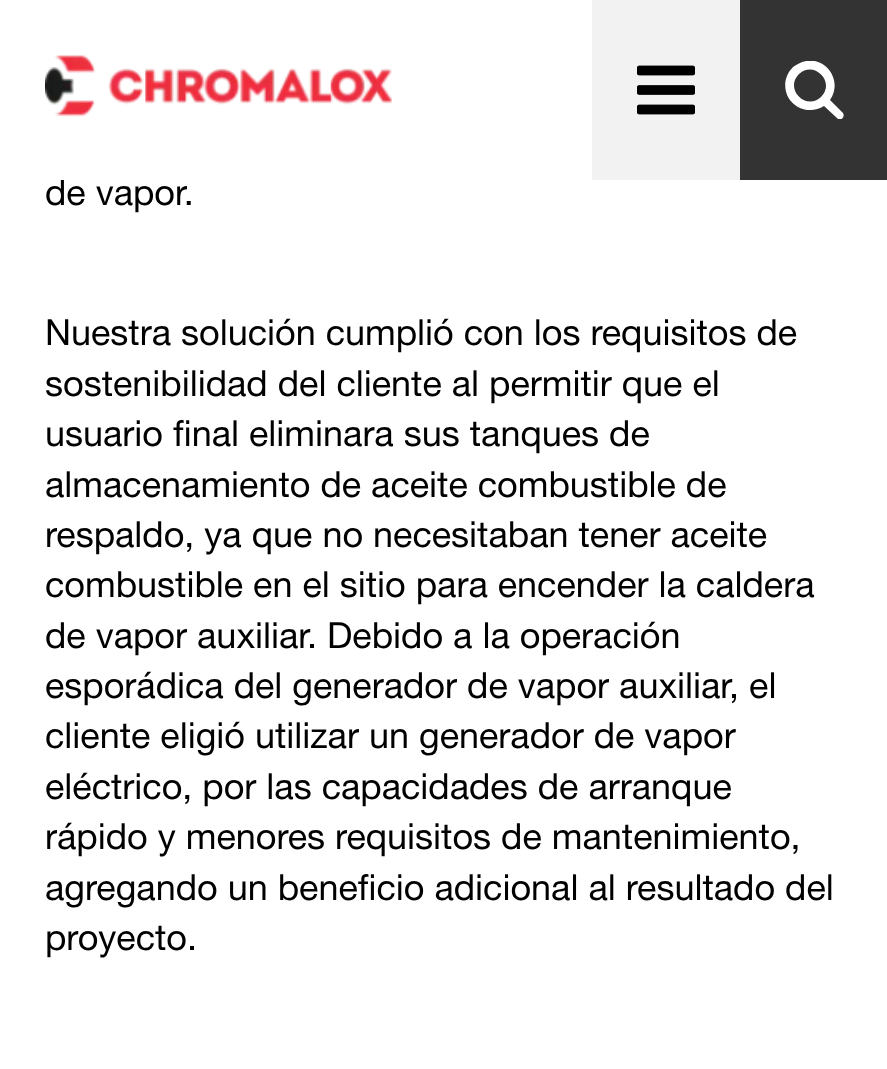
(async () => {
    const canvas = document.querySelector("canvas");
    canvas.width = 887;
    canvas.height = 1069;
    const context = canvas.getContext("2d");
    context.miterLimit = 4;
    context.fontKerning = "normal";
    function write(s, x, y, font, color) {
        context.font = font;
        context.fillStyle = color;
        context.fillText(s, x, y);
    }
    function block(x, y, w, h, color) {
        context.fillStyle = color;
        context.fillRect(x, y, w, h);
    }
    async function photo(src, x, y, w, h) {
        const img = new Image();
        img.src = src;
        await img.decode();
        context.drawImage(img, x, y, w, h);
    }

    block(0, 0, 887, 1069, "rgb(255, 255, 255)");
    write("de vapor.", 45, 205, "36px Helvetica Neue", "rgb(0, 0, 0)");
    block(60, 179, 4, 1, "rgb(255, 255, 255)");
    await photo("media/1.png", 45, 55, 347, 62);
    block(592, 0, 148, 180, "rgb(242, 242, 242)");
    await photo("media/2.png", 637, 65, 58, 50);
    block(740, 0, 147, 180, "rgb(51, 51, 51)");
    context.save();
    context.beginPath();
    context.rect(785, 61, 59, 58);
    context.clip();
    context.fillStyle = "rgb(255, 255, 255)";
    context.beginPath();
    context.moveTo(842, 112);
    context.lineTo(830, 100);
    context.bezierCurveTo(845, 78, 821, 51, 798, 64);
    context.bezierCurveTo(793, 66, 789, 71, 787, 76);
    context.bezierCurveTo(784, 83, 785, 91, 788, 97);
    context.bezierCurveTo(795, 110, 812, 114, 824, 106);
    context.lineTo(838, 119);
    context.bezierCurveTo(842, 121, 846, 115, 842, 112);
    context.closePath();
    context.moveTo(821, 97);
    context.bezierCurveTo(806, 111, 784, 89, 799, 74);
    context.bezierCurveTo(814, 60, 836, 82, 821, 97);
    context.closePath();
    context.fill();
    context.restore();
    write("Nuestra solución cumplió con los requisitos de", 45, 345, "36px Helvetica Neue", "rgb(0, 0, 0)");
    write("sostenibilidad del cliente al permitir que el", 45, 396, "36px Helvetica Neue", "rgb(0, 0, 0)");
    write("usuario final eliminara sus tanques de", 45, 446, "36px Helvetica Neue", "rgb(0, 0, 0)");
    write("almacenamiento de aceite combustible de", 45, 497, "36px Helvetica Neue", "rgb(0, 0, 0)");
    write("respaldo, ya que no necesitaban tener aceite", 45, 547, "36px Helvetica Neue", "rgb(0, 0, 0)");
    write("combustible en el sitio para encender la caldera", 45, 597, "36px Helvetica Neue", "rgb(0, 0, 0)");
    write("de vapor auxiliar. Debido a la operación", 45, 648, "36px Helvetica Neue", "rgb(0, 0, 0)");
    write("esporádica del generador de vapor auxiliar, el", 45, 698, "36px Helvetica Neue", "rgb(0, 0, 0)");
    write("cliente eligió utilizar un generador de vapor", 45, 748, "36px Helvetica Neue", "rgb(0, 0, 0)");
    write("eléctrico, por las capacidades de arranque", 45, 799, "36px Helvetica Neue", "rgb(0, 0, 0)");
    write("rápido y menores requisitos de mantenimiento,", 45, 849, "36px Helvetica Neue", "rgb(0, 0, 0)");
    write("agregando un beneficio adicional al resultado del", 45, 900, "36px Helvetica Neue", "rgb(0, 0, 0)");
    write("proyecto.", 45, 950, "36px Helvetica Neue", "rgb(0, 0, 0)");
})();
